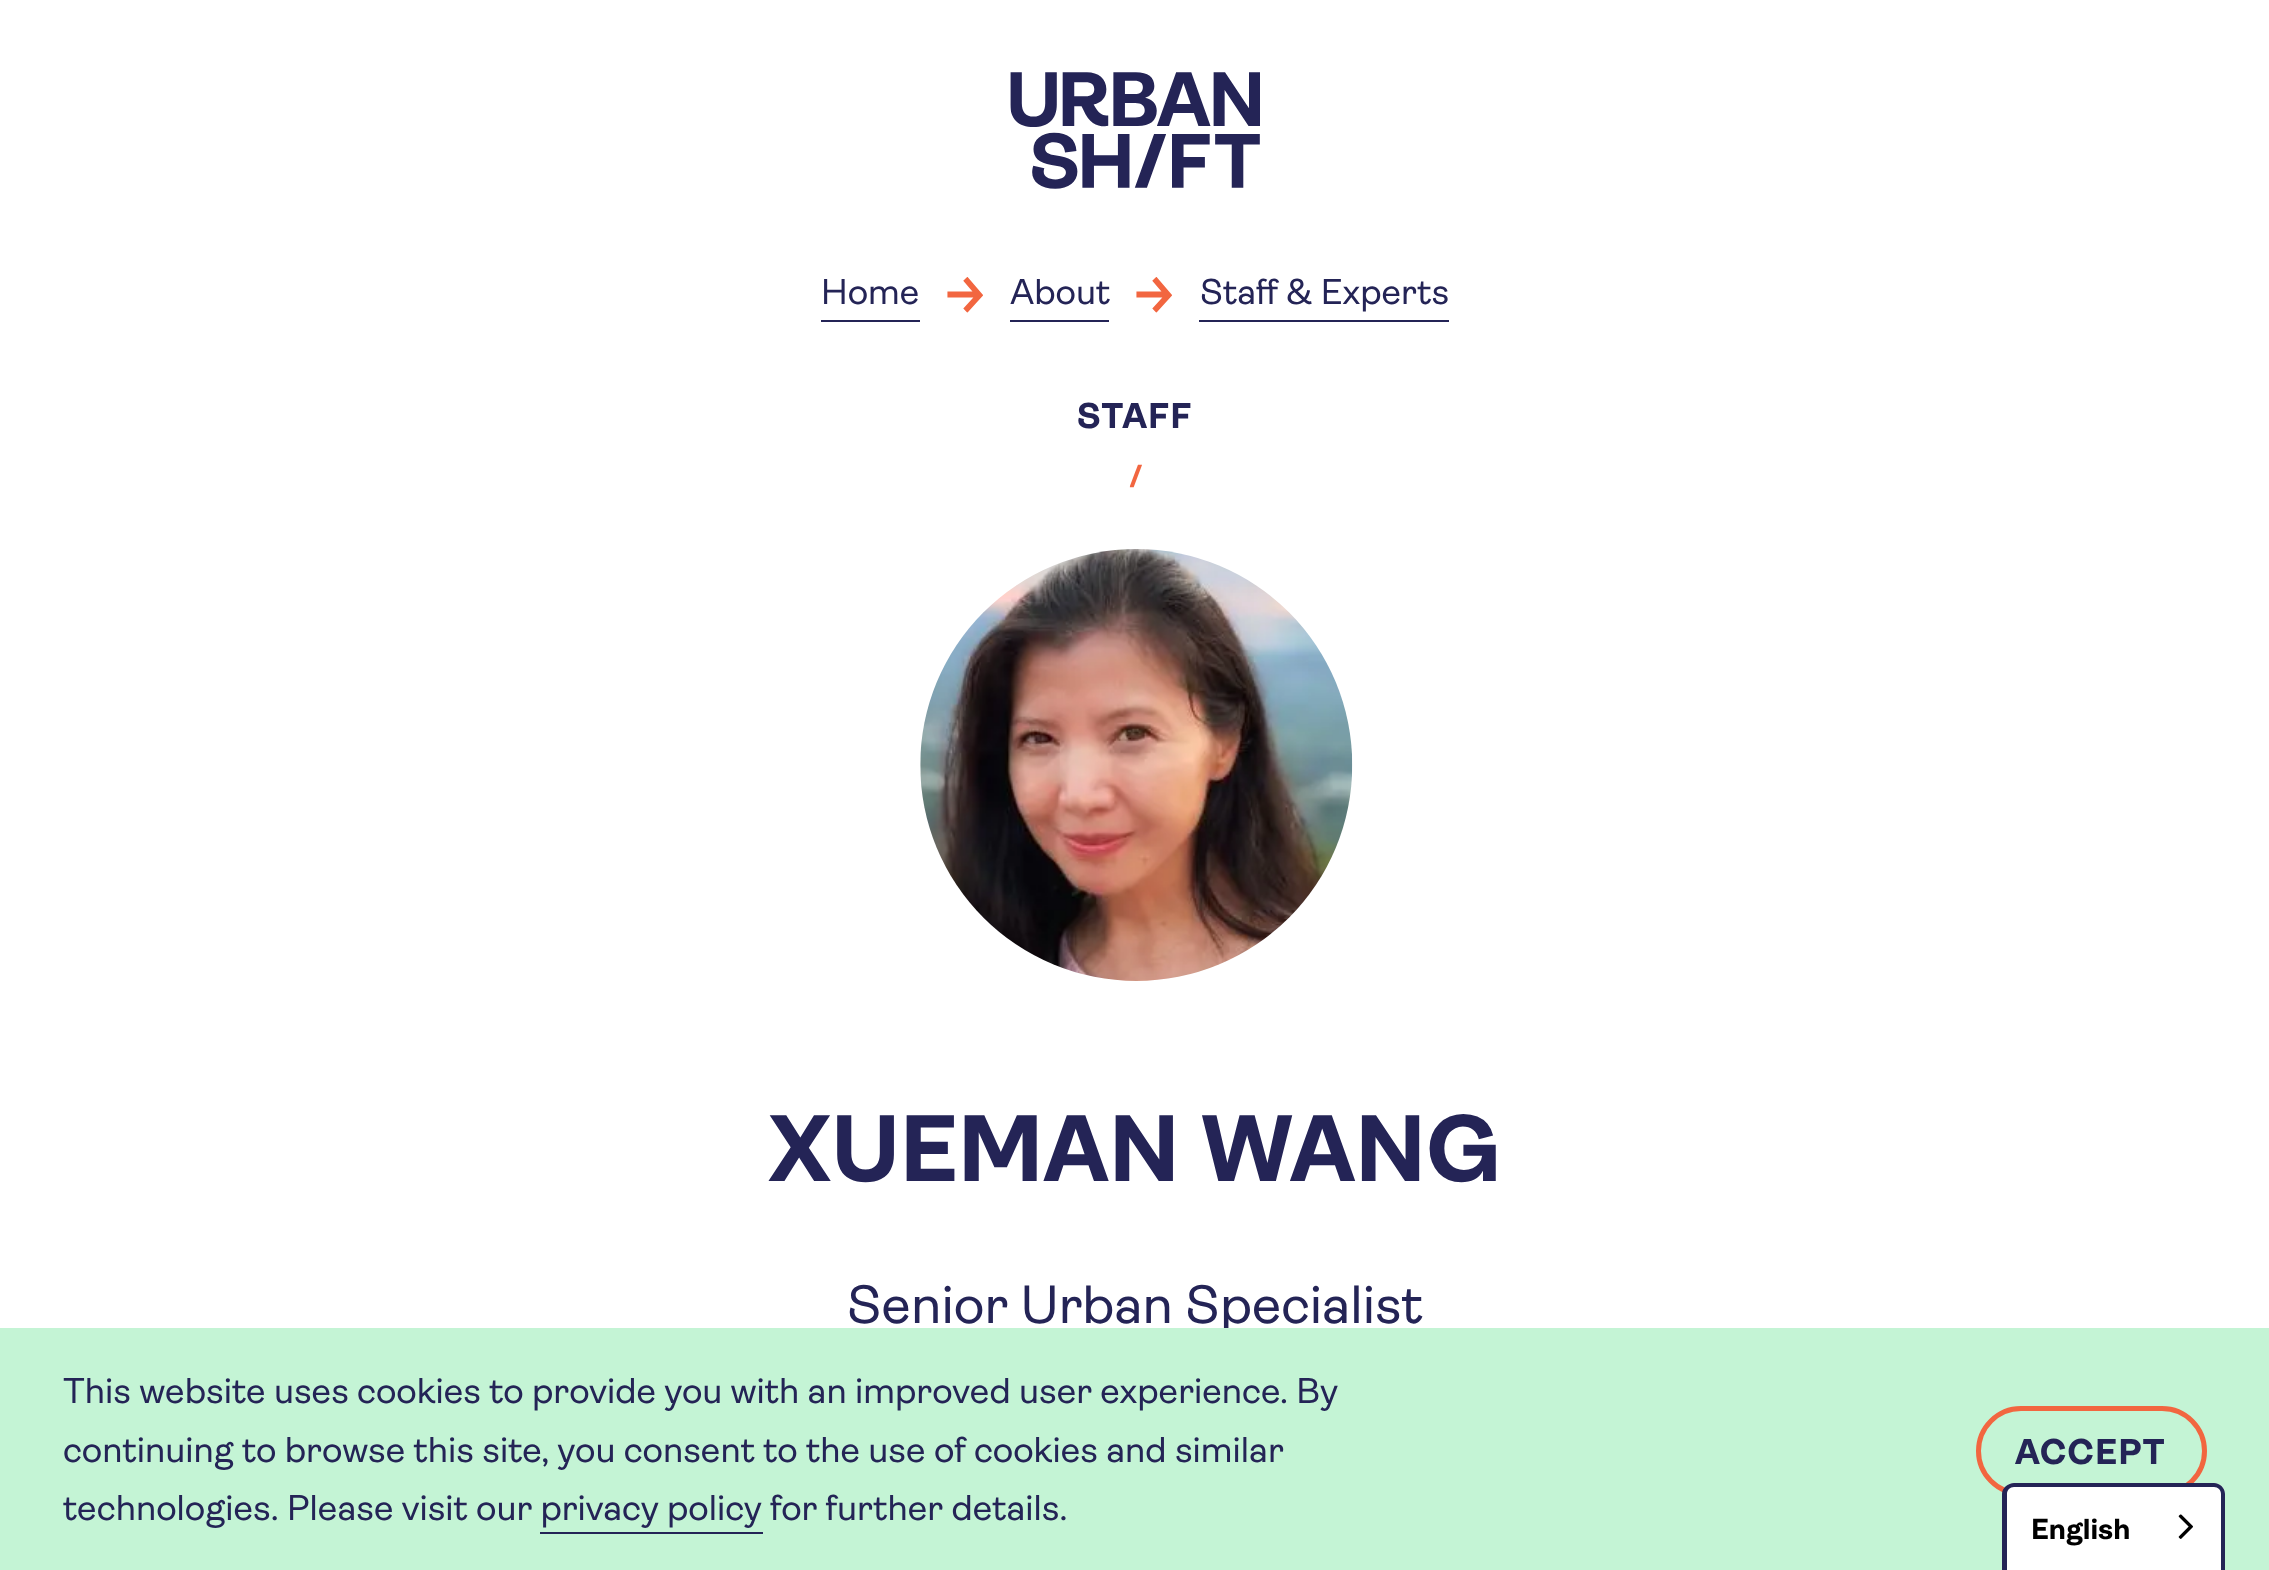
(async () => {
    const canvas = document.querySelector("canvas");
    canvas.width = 2269;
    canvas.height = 1570;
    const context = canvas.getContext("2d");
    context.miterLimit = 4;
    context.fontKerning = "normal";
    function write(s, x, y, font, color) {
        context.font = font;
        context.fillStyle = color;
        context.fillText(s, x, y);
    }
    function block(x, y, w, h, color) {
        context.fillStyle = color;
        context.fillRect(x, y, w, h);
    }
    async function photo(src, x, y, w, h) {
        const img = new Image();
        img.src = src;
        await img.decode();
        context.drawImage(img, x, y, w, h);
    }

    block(0, 0, 2269, 1570, "rgb(255, 255, 255)");
    await photo("media/1.png", 1010, 72, 250, 117);
    block(821, 320, 99, 2, "rgb(36, 36, 86)");
    write("Home", 821, 304, "36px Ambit", "rgb(36, 36, 86)");
    await photo("media/2.png", 947, 277, 36, 36);
    block(1010, 320, 99, 2, "rgb(36, 36, 86)");
    write("About", 1010, 304, "36px Ambit", "rgb(36, 36, 86)");
    await photo("media/2.png", 1136, 277, 36, 36);
    block(1199, 320, 250, 2, "rgb(36, 36, 86)");
    write("Staff & Experts", 1200, 304, "36px Ambit", "rgb(36, 36, 86)");
    context.letterSpacing = "1px";
    write("STAFF", 1077, 428, "bold 36px Ambit", "rgb(36, 36, 86)");
    await photo("media/3.png", 1129, 464, 13, 24);
    await photo("media/4.png", 920, 549, 433, 432);
    context.letterSpacing = "0px";
    write("XUEMAN WANG", 768, 1181, "bold 94.5px Ambit", "rgb(36, 36, 86)");
    write("Senior Urban Specialist", 847, 1323, "54px Ambit", "rgb(36, 36, 86)");
    block(0, 1328, 2269, 242, "rgb(196, 244, 213)");
    write("This website uses cookies to provide you with an improved user experience. By", 63, 1403, "36px Ambit", "rgb(36, 36, 86)");
    write("continuing to browse this site, you consent to the use of cookies and similar", 63, 1462, "36px Ambit", "rgb(36, 36, 86)");
    write("technologies. Please visit our privacy policy for further details.", 63, 1520, "36px Ambit", "rgb(36, 36, 86)");
    block(540, 1532, 223, 2, "rgb(36, 36, 86)");
    context.beginPath();
    context.roundRect(1978.5, 1408.5, 226, 85, 42.5);
    context.strokeStyle = "rgb(242, 102, 64)";
    context.lineWidth = 5;
    context.stroke();
    context.letterSpacing = "1px";
    write("ACCEPT", 2015, 1464, "bold 36px Ambit", "rgb(36, 36, 86)");
    context.fillStyle = "rgb(255, 255, 255)";
    context.beginPath();
    context.moveTo(2014, 1483);
    context.lineTo(2214, 1483);
    context.bezierCurveTo(2220, 1483, 2225, 1488, 2225, 1494);
    context.lineTo(2225, 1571);
    context.lineTo(2003, 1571);
    context.lineTo(2003, 1494);
    context.bezierCurveTo(2003, 1488, 2008, 1483, 2014, 1483);
    context.closePath();
    context.fill();
    context.fillStyle = "rgb(36, 36, 86)";
    context.beginPath();
    context.moveTo(2014, 1483);
    context.lineTo(2214, 1483);
    context.bezierCurveTo(2220, 1483, 2225, 1488, 2225, 1494);
    context.lineTo(2225, 1570);
    context.lineTo(2002, 1570);
    context.lineTo(2002, 1494);
    context.bezierCurveTo(2002, 1488, 2008, 1483, 2014, 1483);
    context.closePath();
    context.moveTo(2014, 1487);
    context.lineTo(2214, 1487);
    context.bezierCurveTo(2218, 1487, 2221, 1490, 2221, 1494);
    context.lineTo(2221, 1570);
    context.lineTo(2007, 1570);
    context.lineTo(2007, 1494);
    context.bezierCurveTo(2007, 1490, 2010, 1487, 2014, 1487);
    context.closePath();
    context.fill("evenodd");
    context.letterSpacing = "0px";
    write("English", 2031, 1539, "bold 29px Ambit", "rgb(0, 0, 0)");
    await photo("media/5.png", 2178, 1514, 15, 25);
})();
